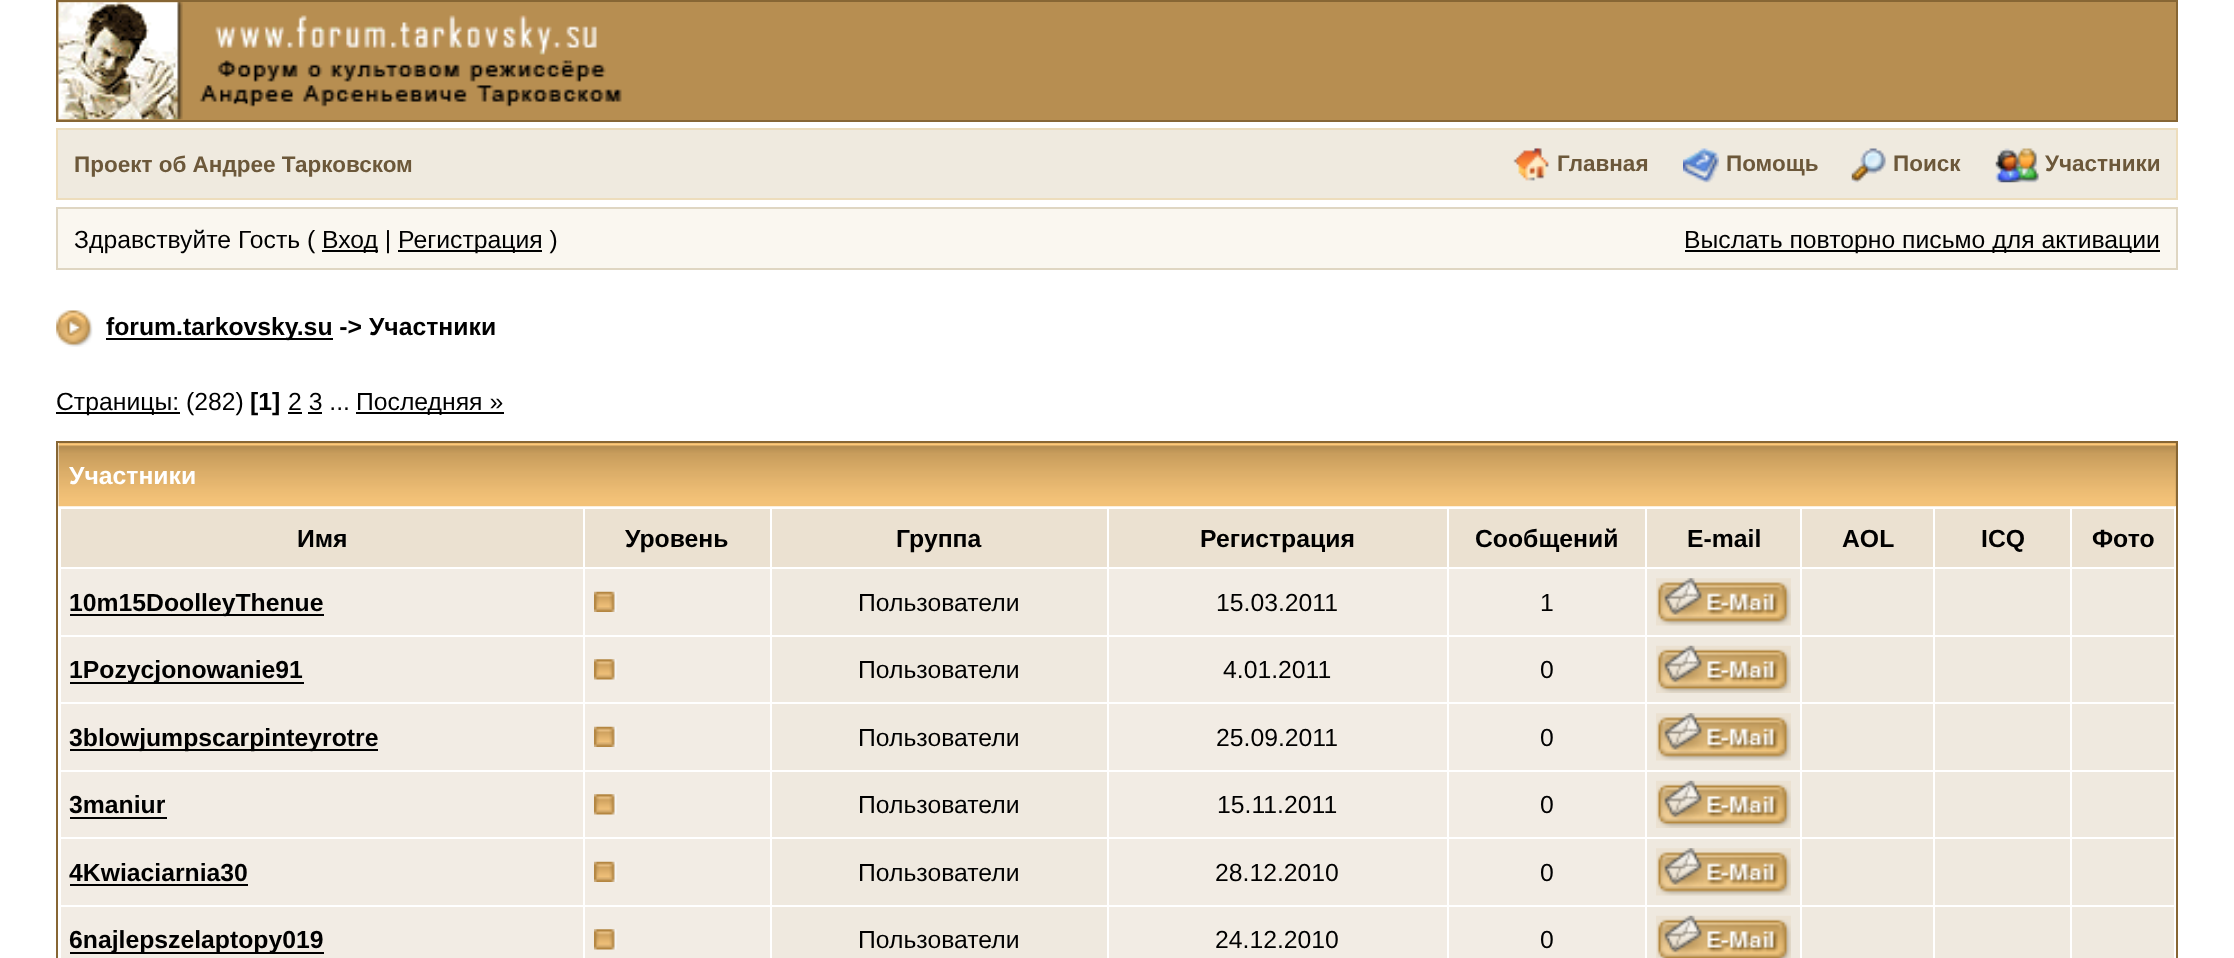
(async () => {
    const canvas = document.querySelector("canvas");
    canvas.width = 2234;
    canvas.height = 958;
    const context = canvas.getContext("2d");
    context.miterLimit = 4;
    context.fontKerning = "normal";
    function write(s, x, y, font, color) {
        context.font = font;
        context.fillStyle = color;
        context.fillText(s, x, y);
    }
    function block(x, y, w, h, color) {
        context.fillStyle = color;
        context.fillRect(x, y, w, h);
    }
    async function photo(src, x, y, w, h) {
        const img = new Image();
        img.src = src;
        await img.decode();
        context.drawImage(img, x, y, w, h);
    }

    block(0, 0, 2234, 958, "rgb(255, 255, 255)");
    context.fillStyle = "rgb(183, 142, 81)";
    context.beginPath();
    context.rect(57, 1, 2120, 120);
    context.fill();
    context.strokeStyle = "rgb(135, 102, 52)";
    context.lineWidth = 2;
    context.stroke();
    await photo("media/1.png", 58, 2, 564, 118);
    context.fillStyle = "rgb(239, 234, 223)";
    context.beginPath();
    context.rect(57, 129, 2120, 70);
    context.fill();
    context.strokeStyle = "rgb(237, 221, 188)";
    context.stroke();
    write("Проект об Андрее Тарковском", 74, 172, "bold 22.5px Liberation Sans", "rgb(108, 88, 58)");
    await photo("media/2.png", 1513, 148, 36, 33);
    write("Главная", 1557, 171, "bold 22.5px Liberation Sans", "rgb(108, 88, 58)");
    await photo("media/3.png", 1683, 148, 36, 35);
    write("Помощь", 1726, 171, "bold 22.5px Liberation Sans", "rgb(108, 88, 58)");
    await photo("media/4.png", 1851, 148, 35, 35);
    write("Поиск", 1893, 171, "bold 22.5px Liberation Sans", "rgb(108, 88, 58)");
    await photo("media/5.png", 1995, 148, 44, 35);
    write("Участники", 2045, 171, "bold 22.5px Liberation Sans", "rgb(108, 88, 58)");
    context.fillStyle = "rgb(250, 247, 240)";
    context.beginPath();
    context.rect(57, 208, 2120, 61);
    context.fill();
    context.strokeStyle = "rgb(223, 214, 194)";
    context.stroke();
    write("Здравствуйте Гость (", 74, 248, "24.75px Liberation Sans", "rgb(0, 0, 0)");
    block(322, 250, 56, 2, "rgb(0, 0, 0)");
    write("Вход |", 322, 248, "24.75px Liberation Sans", "rgb(0, 0, 0)");
    block(398, 250, 144, 2, "rgb(0, 0, 0)");
    write("Регистрация )", 398, 248, "24.75px Liberation Sans", "rgb(0, 0, 0)");
    block(1685, 250, 475, 2, "rgb(0, 0, 0)");
    write("Выслать повторно письмо для активации", 1684, 248, "24.75px Liberation Sans", "rgb(0, 0, 0)");
    await photo("media/6.png", 56, 310, 37, 37);
    block(106, 338, 227, 2, "rgb(0, 0, 0)");
    write("forum.tarkovsky.su -> Участники", 106, 335, "bold 24.75px Liberation Sans", "rgb(0, 0, 0)");
    block(56, 412, 124, 2, "rgb(0, 0, 0)");
    write("Страницы: (282)", 56, 410, "24.75px Liberation Sans", "rgb(0, 0, 0)");
    write("[1]", 250, 410, "bold 24.75px Liberation Sans", "rgb(0, 0, 0)");
    write("2 3 ...", 288, 410, "24.75px Liberation Sans", "rgb(0, 0, 0)");
    block(288, 412, 14, 2, "rgb(0, 0, 0)");
    block(356, 412, 148, 2, "rgb(0, 0, 0)");
    write("Последняя »", 356, 410, "24.75px Liberation Sans", "rgb(0, 0, 0)");
    block(308, 412, 14, 2, "rgb(0, 0, 0)");
    context.strokeStyle = "rgb(135, 102, 52)";
    context.strokeRect(57, 442, 2120, 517);
    block(59, 443, 2117, 63, "rgb(183, 142, 81)");
    await photo("media/7.png", 58, 443, 2118, 64);
    write("Участники", 69, 484, "bold 24.75px Liberation Sans", "rgb(255, 255, 255)");
    block(61, 509, 522, 58, "rgb(235, 225, 209)");
    write("Имя", 297, 547, "bold 24.75px Liberation Sans", "rgb(0, 0, 0)");
    block(585, 509, 185, 58, "rgb(235, 225, 209)");
    write("Уровень", 625, 547, "bold 24.75px Liberation Sans", "rgb(0, 0, 0)");
    block(772, 509, 335, 58, "rgb(235, 225, 209)");
    write("Группа", 896, 547, "bold 24.75px Liberation Sans", "rgb(0, 0, 0)");
    block(1109, 509, 338, 58, "rgb(235, 225, 209)");
    write("Регистрация", 1200, 547, "bold 24.75px Liberation Sans", "rgb(0, 0, 0)");
    block(1449, 509, 196, 58, "rgb(235, 225, 209)");
    write("Сообщений", 1475, 547, "bold 24.75px Liberation Sans", "rgb(0, 0, 0)");
    block(1647, 509, 153, 58, "rgb(235, 225, 209)");
    write("E-mail", 1687, 547, "bold 24.75px Liberation Sans", "rgb(0, 0, 0)");
    block(1802, 509, 131, 58, "rgb(235, 225, 209)");
    write("AOL", 1842, 547, "bold 24.75px Liberation Sans", "rgb(0, 0, 0)");
    block(1935, 509, 135, 58, "rgb(235, 225, 209)");
    write("ICQ", 1981, 547, "bold 24.75px Liberation Sans", "rgb(0, 0, 0)");
    block(2072, 509, 102, 58, "rgb(235, 225, 209)");
    write("Фото", 2092, 547, "bold 24.75px Liberation Sans", "rgb(0, 0, 0)");
    block(61, 569, 522, 66, "rgb(242, 236, 228)");
    block(70, 614, 254, 2, "rgb(0, 0, 0)");
    write("10m15DoolleyThenue", 69, 611, "bold 24.75px Liberation Sans", "rgb(0, 0, 0)");
    block(585, 569, 185, 66, "rgb(242, 236, 228)");
    await photo("media/8.png", 594, 591, 23, 21);
    block(772, 569, 335, 66, "rgb(239, 233, 223)");
    write("Пользователи", 858, 611, "24.75px Liberation Sans", "rgb(0, 0, 0)");
    block(1109, 569, 338, 66, "rgb(242, 236, 228)");
    write("15.03.2011", 1216, 611, "24.75px Liberation Sans", "rgb(0, 0, 0)");
    block(1449, 569, 196, 66, "rgb(242, 236, 228)");
    write("1", 1540, 611, "24.75px Liberation Sans", "rgb(0, 0, 0)");
    block(1647, 569, 153, 66, "rgb(239, 233, 223)");
    await photo("media/9.png", 1656, 578, 135, 48);
    block(1802, 569, 131, 66, "rgb(239, 233, 223)");
    block(1935, 569, 135, 66, "rgb(239, 233, 223)");
    block(2072, 569, 102, 66, "rgb(239, 233, 223)");
    block(61, 637, 522, 65, "rgb(242, 236, 228)");
    block(70, 682, 234, 2, "rgb(0, 0, 0)");
    write("1Pozycjonowanie91", 69, 678, "bold 24.75px Liberation Sans", "rgb(0, 0, 0)");
    block(585, 637, 185, 65, "rgb(242, 236, 228)");
    await photo("media/10.png", 594, 659, 23, 21);
    block(772, 637, 335, 65, "rgb(239, 233, 223)");
    write("Пользователи", 858, 678, "24.75px Liberation Sans", "rgb(0, 0, 0)");
    block(1109, 637, 338, 65, "rgb(242, 236, 228)");
    write("4.01.2011", 1223, 678, "24.75px Liberation Sans", "rgb(0, 0, 0)");
    block(1449, 637, 196, 65, "rgb(242, 236, 228)");
    write("0", 1540, 678, "24.75px Liberation Sans", "rgb(0, 0, 0)");
    block(1647, 637, 153, 65, "rgb(239, 233, 223)");
    await photo("media/11.png", 1656, 645, 135, 48);
    block(1802, 637, 131, 65, "rgb(239, 233, 223)");
    block(1935, 637, 135, 65, "rgb(239, 233, 223)");
    block(2072, 637, 102, 65, "rgb(239, 233, 223)");
    block(61, 704, 522, 66, "rgb(242, 236, 228)");
    block(70, 749, 308, 2, "rgb(0, 0, 0)");
    write("3blowjumpscarpinteyrotre", 69, 746, "bold 24.75px Liberation Sans", "rgb(0, 0, 0)");
    block(585, 704, 185, 66, "rgb(242, 236, 228)");
    await photo("media/8.png", 594, 726, 23, 21);
    block(772, 704, 335, 66, "rgb(239, 233, 223)");
    write("Пользователи", 858, 746, "24.75px Liberation Sans", "rgb(0, 0, 0)");
    block(1109, 704, 338, 66, "rgb(242, 236, 228)");
    write("25.09.2011", 1216, 746, "24.75px Liberation Sans", "rgb(0, 0, 0)");
    block(1449, 704, 196, 66, "rgb(242, 236, 228)");
    write("0", 1540, 746, "24.75px Liberation Sans", "rgb(0, 0, 0)");
    block(1647, 704, 153, 66, "rgb(239, 233, 223)");
    await photo("media/12.png", 1656, 713, 135, 48);
    block(1802, 704, 131, 66, "rgb(239, 233, 223)");
    block(1935, 704, 135, 66, "rgb(239, 233, 223)");
    block(2072, 704, 102, 66, "rgb(239, 233, 223)");
    block(61, 772, 522, 65, "rgb(242, 236, 228)");
    write("3maniur", 69, 813, "bold 24.75px Liberation Sans", "rgb(0, 0, 0)");
    block(70, 817, 97, 2, "rgb(0, 0, 0)");
    block(585, 772, 185, 65, "rgb(242, 236, 228)");
    await photo("media/10.png", 594, 794, 23, 21);
    block(772, 772, 335, 65, "rgb(239, 233, 223)");
    write("Пользователи", 858, 813, "24.75px Liberation Sans", "rgb(0, 0, 0)");
    block(1109, 772, 338, 65, "rgb(242, 236, 228)");
    write("15.11.2011", 1217, 813, "24.75px Liberation Sans", "rgb(0, 0, 0)");
    block(1449, 772, 196, 65, "rgb(242, 236, 228)");
    write("0", 1540, 813, "24.75px Liberation Sans", "rgb(0, 0, 0)");
    block(1647, 772, 153, 65, "rgb(239, 233, 223)");
    await photo("media/11.png", 1656, 780, 135, 48);
    block(1802, 772, 131, 65, "rgb(239, 233, 223)");
    block(1935, 772, 135, 65, "rgb(239, 233, 223)");
    block(2072, 772, 102, 65, "rgb(239, 233, 223)");
    block(61, 839, 522, 66, "rgb(242, 236, 228)");
    write("4Kwiaciarnia30", 69, 881, "bold 24.75px Liberation Sans", "rgb(0, 0, 0)");
    block(70, 884, 178, 2, "rgb(0, 0, 0)");
    block(585, 839, 185, 66, "rgb(242, 236, 228)");
    await photo("media/8.png", 594, 861, 23, 21);
    block(772, 839, 335, 66, "rgb(239, 233, 223)");
    write("Пользователи", 858, 881, "24.75px Liberation Sans", "rgb(0, 0, 0)");
    block(1109, 839, 338, 66, "rgb(242, 236, 228)");
    write("28.12.2010", 1215, 881, "24.75px Liberation Sans", "rgb(0, 0, 0)");
    block(1449, 839, 196, 66, "rgb(242, 236, 228)");
    write("0", 1540, 881, "24.75px Liberation Sans", "rgb(0, 0, 0)");
    block(1647, 839, 153, 66, "rgb(239, 233, 223)");
    await photo("media/12.png", 1656, 848, 135, 48);
    block(1802, 839, 131, 66, "rgb(239, 233, 223)");
    block(1935, 839, 135, 66, "rgb(239, 233, 223)");
    block(2072, 839, 102, 66, "rgb(239, 233, 223)");
    block(61, 907, 522, 51, "rgb(242, 236, 228)");
    block(70, 952, 254, 2, "rgb(0, 0, 0)");
    write("6najlepszelaptopy019", 69, 948, "bold 24.75px Liberation Sans", "rgb(0, 0, 0)");
    block(585, 907, 185, 51, "rgb(242, 236, 228)");
    await photo("media/10.png", 594, 929, 23, 21);
    block(772, 907, 335, 51, "rgb(239, 233, 223)");
    write("Пользователи", 858, 948, "24.75px Liberation Sans", "rgb(0, 0, 0)");
    block(1109, 907, 338, 51, "rgb(242, 236, 228)");
    write("24.12.2010", 1215, 948, "24.75px Liberation Sans", "rgb(0, 0, 0)");
    block(1449, 907, 196, 51, "rgb(242, 236, 228)");
    write("0", 1540, 948, "24.75px Liberation Sans", "rgb(0, 0, 0)");
    block(1647, 907, 153, 51, "rgb(239, 233, 223)");
    await photo("media/13.png", 1656, 915, 135, 43);
    block(1802, 907, 131, 51, "rgb(239, 233, 223)");
    block(1935, 907, 135, 51, "rgb(239, 233, 223)");
    block(2072, 907, 102, 51, "rgb(239, 233, 223)");
})();
